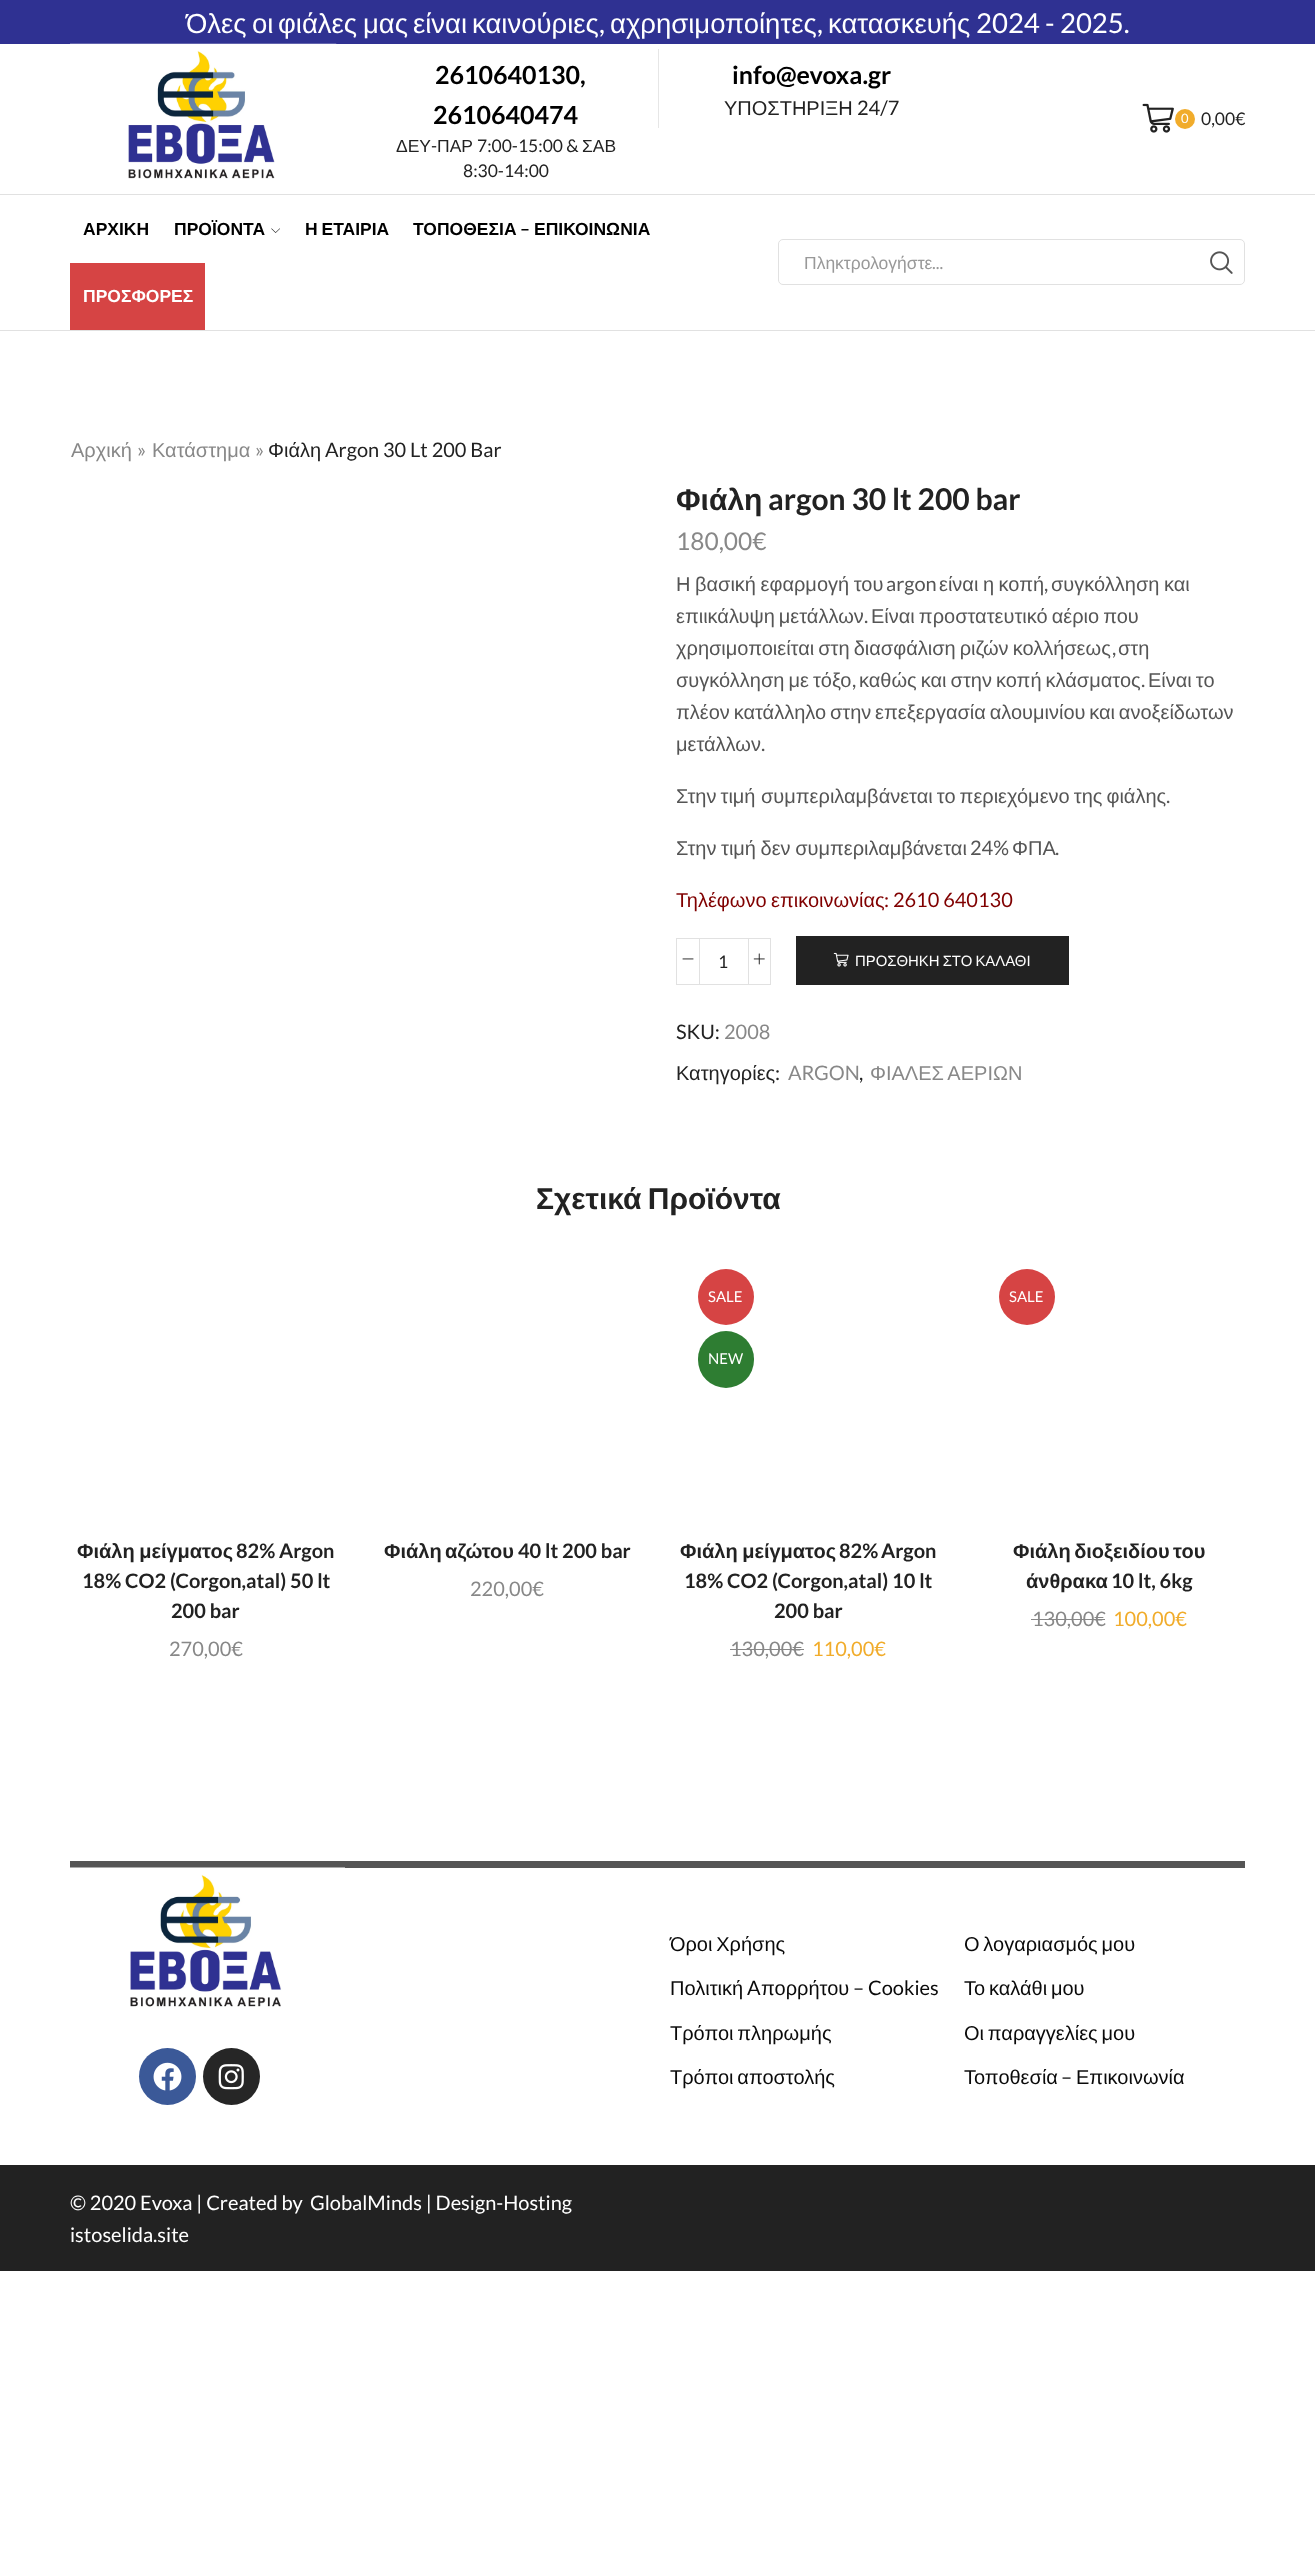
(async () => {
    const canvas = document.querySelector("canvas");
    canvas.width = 1315;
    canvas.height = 2570;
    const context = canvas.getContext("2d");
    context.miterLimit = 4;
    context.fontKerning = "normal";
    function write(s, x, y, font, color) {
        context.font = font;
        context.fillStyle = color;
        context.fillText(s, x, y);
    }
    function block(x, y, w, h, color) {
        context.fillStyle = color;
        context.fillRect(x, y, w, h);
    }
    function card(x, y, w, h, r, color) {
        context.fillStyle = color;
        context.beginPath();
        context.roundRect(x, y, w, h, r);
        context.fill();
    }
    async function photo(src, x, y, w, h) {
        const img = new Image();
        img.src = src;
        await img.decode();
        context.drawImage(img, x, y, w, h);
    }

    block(0, 0, 1315, 2570, "rgb(255, 255, 255)");
    block(0, 0, 1315, 44, "rgb(47, 49, 146)");
    write("Όλες", 186, 33, "27.5px Liberation Sans", "rgb(255, 255, 255)");
    write("οι", 252, 33, "27.5px Liberation Sans", "rgb(255, 255, 255)");
    write("φιάλες", 278, 33, "27.5px Liberation Sans", "rgb(255, 255, 255)");
    write("μας", 363, 33, "27.5px Liberation Sans", "rgb(255, 255, 255)");
    write("είναι", 413, 33, "27.5px Liberation Sans", "rgb(255, 255, 255)");
    write("καινούριες", 472, 33, "27.5px Liberation Sans", "rgb(255, 255, 255)");
    write(",", 599, 33, "27.5px Lato", "rgb(255, 255, 255)");
    write("αχρησιμοποίητες", 610, 33, "27.5px Liberation Sans", "rgb(255, 255, 255)");
    write(",", 817, 33, "27.5px Lato", "rgb(255, 255, 255)");
    write("κατασκευής", 828, 33, "27.5px Liberation Sans", "rgb(255, 255, 255)");
    write("2024 - 2025.", 976, 33, "27.5px Lato", "rgb(255, 255, 255)");
    await photo("media/1.png", 70, 43, 267, 136);
    write("2610640130,", 435, 84, "bold 25px Lato", "rgb(0, 0, 0)");
    write("2610640474", 433, 124, "bold 25px Lato", "rgb(0, 0, 0)");
    write("ΔΕΥ", 396, 152, "17.5px Liberation Sans", "rgb(34, 34, 34)");
    write("-", 431, 152, "17.5px Lato", "rgb(34, 34, 34)");
    write("ΠΑΡ", 437, 152, "17.5px Liberation Sans", "rgb(34, 34, 34)");
    write("7:00-15:00 &", 477, 152, "17.5px Lato", "rgb(34, 34, 34)");
    write("ΣΑΒ", 582, 152, "17.5px Liberation Sans", "rgb(34, 34, 34)");
    write("8:30-14:00", 463, 177, "17.5px Lato", "rgb(34, 34, 34)");
    block(658, 49, 1, 79, "rgb(230, 230, 230)");
    write("info@evoxa.gr", 732, 84, "bold 25px Lato", "rgb(0, 0, 0)");
    write("ΥΠΟΣΤΗΡΙΞΗ", 724, 115, "20px Liberation Sans", "rgb(34, 34, 34)");
    write("24/7", 857, 115, "20px Lato", "rgb(34, 34, 34)");
    await photo("media/2.png", 1142, 103, 32, 30);
    context.fillStyle = "rgb(241, 172, 43)";
    context.beginPath();
    context.arc(1185, 119, 10, 0, Math.PI * 2);
    context.fill();
    write("0", 1181, 123, "13px Lato", "rgb(255, 255, 255)");
    write("0,00€", 1201, 125, "17.5px Lato", "rgb(34, 34, 34)");
    block(0, 194, 1315, 1, "rgb(225, 225, 225)");
    block(0, 330, 1315, 1, "rgb(225, 225, 225)");
    write("ΑΡΧΙΚΗ", 83, 235, "bold 17.5px Liberation Sans", "rgb(0, 0, 0)");
    write("ΠΡΟΪΟΝΤΑ", 174, 235, "bold 17.5px Liberation Sans", "rgb(0, 0, 0)");
    await photo("media/3.png", 271, 228, 9, 5);
    context.wordSpacing = "-1px";
    write("Η ΕΤΑΙΡΙΑ", 305, 235, "bold 17.5px Liberation Sans", "rgb(0, 0, 0)");
    context.wordSpacing = "0px";
    write("ΤΟΠΟΘΕΣΙΑ", 413, 235, "bold 17.5px Liberation Sans", "rgb(0, 0, 0)");
    write("–", 520, 235, "bold 17.5px Lato", "rgb(0, 0, 0)");
    write("ΕΠΙΚΟΙΝΩΝΙΑ", 534, 235, "bold 17.5px Liberation Sans", "rgb(0, 0, 0)");
    block(70, 263, 135, 67, "rgb(214, 68, 68)");
    write("ΠΡΟΣΦΟΡΕΣ", 83, 302, "bold 17.5px Liberation Sans", "rgb(255, 255, 255)");
    context.beginPath();
    context.roundRect(778.5, 239.5, 466, 45, 4.5);
    context.strokeStyle = "rgb(225, 225, 225)";
    context.stroke();
    write("Πληκτρολογήστε", 804, 269, "17.5px Liberation Sans", "rgb(153, 153, 153)");
    write("...", 932, 269, "17.5px Lato", "rgb(153, 153, 153)");
    await photo("media/4.png", 1210, 251, 23, 23);
    write("Αρχική", 71, 457, "20px Liberation Sans", "rgb(136, 136, 136)");
    write("»", 137, 457, "20px Lato", "rgb(136, 136, 136)");
    write("Κατάστημα", 152, 457, "20px Liberation Sans", "rgb(136, 136, 136)");
    write("»", 255, 457, "20px Lato", "rgb(136, 136, 136)");
    write("Φιάλη", 268, 457, "20px Liberation Sans", "rgb(34, 34, 34)");
    write("Argon 30 Lt 200 Bar", 325, 457, "20px Lato", "rgb(34, 34, 34)");
    write("Φιάλη", 676, 510, "bold 30px Liberation Sans", "rgb(34, 34, 34)");
    write("argon 30 lt 200 bar", 768, 510, "bold 30px Lato", "rgb(34, 34, 34)");
    write("180,00€", 676, 550, "24.5px Lato", "rgb(136, 136, 136)");
    context.wordSpacing = "-1px";
    write("Η βασική εφαρμογή του", 676, 591, "20px Liberation Sans", "rgb(85, 85, 85)");
    context.wordSpacing = "0px";
    write("argon", 886, 591, "20px Lato", "rgb(85, 85, 85)");
    context.wordSpacing = "-1px";
    write("είναι η κοπή", 939, 591, "20px Liberation Sans", "rgb(85, 85, 85)");
    context.wordSpacing = "0px";
    write(",", 1044, 591, "20px Lato", "rgb(85, 85, 85)");
    context.wordSpacing = "-1px";
    write("συγκόλληση και", 1051, 591, "20px Liberation Sans", "rgb(85, 85, 85)");
    context.wordSpacing = "-1.5px";
    write("επιικάλυψη μετάλλων", 676, 623, "20px Liberation Sans", "rgb(85, 85, 85)");
    context.wordSpacing = "0px";
    write(".", 864, 623, "20px Lato", "rgb(85, 85, 85)");
    context.wordSpacing = "-1.5px";
    write("Είναι προστατευτικό αέριο που", 871, 623, "20px Liberation Sans", "rgb(85, 85, 85)");
    write("χρησιμοποιείται στη διασφάλιση ριζών κολλήσεως", 676, 655, "20px Liberation Sans", "rgb(85, 85, 85)");
    context.wordSpacing = "0px";
    write(",", 1112, 655, "20px Lato", "rgb(85, 85, 85)");
    write("στη", 1118, 655, "20px Liberation Sans", "rgb(85, 85, 85)");
    context.wordSpacing = "-1.5px";
    write("συγκόλληση με τόξο", 676, 687, "20px Liberation Sans", "rgb(85, 85, 85)");
    context.wordSpacing = "0px";
    write(",", 852, 687, "20px Lato", "rgb(85, 85, 85)");
    context.wordSpacing = "-1.5px";
    write("καθώς και στην κοπή κλάσματος", 859, 687, "20px Liberation Sans", "rgb(85, 85, 85)");
    context.wordSpacing = "0px";
    write(".", 1141, 687, "20px Lato", "rgb(85, 85, 85)");
    context.wordSpacing = "-1.5px";
    write("Είναι το", 1148, 687, "20px Liberation Sans", "rgb(85, 85, 85)");
    context.wordSpacing = "-1.75px";
    write("πλέον κατάλληλο στην επεξεργασία αλουμινίου και ανοξείδωτων", 676, 719, "20px Liberation Sans", "rgb(85, 85, 85)");
    context.wordSpacing = "0px";
    write("μετάλλων", 676, 751, "20px Liberation Sans", "rgb(85, 85, 85)");
    write(".", 761, 751, "20px Lato", "rgb(85, 85, 85)");
    context.wordSpacing = "-1.5px";
    write("Στην τιμή", 676, 803, "20px Liberation Sans", "rgb(85, 85, 85)");
    write("συμπεριλαμβάνεται το περιεχόμενο της φιάλης", 761, 803, "20px Liberation Sans", "rgb(85, 85, 85)");
    context.wordSpacing = "0px";
    write(".", 1166, 803, "20px Lato", "rgb(85, 85, 85)");
    context.wordSpacing = "-1px";
    write("Στην τιμή δεν συμπεριλαμβάνεται", 676, 855, "20px Liberation Sans", "rgb(85, 85, 85)");
    context.wordSpacing = "0px";
    write("24%", 970, 855, "20px Lato", "rgb(85, 85, 85)");
    write("ΦΠΑ", 1012, 855, "20px Liberation Sans", "rgb(85, 85, 85)");
    write(".", 1055, 855, "20px Lato", "rgb(85, 85, 85)");
    write("Τηλέφωνο", 676, 907, "20px Liberation Sans", "rgb(128, 0, 0)");
    write("επικοινωνίας", 771, 907, "20px Liberation Sans", "rgb(128, 0, 0)");
    write(": 2610 640130", 884, 907, "20px Lato", "rgb(128, 0, 0)");
    context.strokeRect(676.5, 938.5, 23, 46);
    await photo("media/5.png", 682, 958, 12, 2);
    block(700, 938, 48, 1, "rgb(225, 225, 225)");
    block(700, 984, 48, 1, "rgb(225, 225, 225)");
    write("1", 718, 968, "17.5px Lato", "rgb(34, 34, 34)");
    context.strokeRect(748.5, 938.5, 22, 46);
    await photo("media/6.png", 753, 953, 12, 12);
    block(796, 936, 273, 49, "rgb(34, 34, 34)");
    await photo("media/7.png", 833, 952, 16, 15);
    context.wordSpacing = "-1px";
    write("ΠΡΟΣΘΗΚΗ ΣΤΟ ΚΑΛΑΘΙ", 855, 966, "14.9px Liberation Sans", "rgb(255, 255, 255)");
    context.wordSpacing = "0px";
    write("SKU:", 676, 1039, "20px Lato", "rgb(34, 34, 34)");
    write("2008", 724, 1039, "20px Lato", "rgb(136, 136, 136)");
    write("Κατηγορίες", 676, 1080, "20px Liberation Sans", "rgb(34, 34, 34)");
    write(":", 775, 1080, "20px Lato", "rgb(34, 34, 34)");
    write("ARGON", 788, 1080, "20px Lato", "rgb(136, 136, 136)");
    write(",", 859, 1080, "20px Lato", "rgb(34, 34, 34)");
    context.wordSpacing = "-1px";
    write("ΦΙΑΛΕΣ ΑΕΡΙΩΝ", 870, 1080, "20px Liberation Sans", "rgb(136, 136, 136)");
    context.wordSpacing = "-2px";
    write("Σχετικά Προϊόντα", 536, 1209, "bold 30px Liberation Sans", "rgb(34, 34, 34)");
    context.wordSpacing = "-1px";
    write("Φιάλη μείγματος", 77, 1558, "bold 20px Liberation Sans", "rgb(34, 34, 34)");
    context.wordSpacing = "0px";
    write("82%", 236, 1558, "bold 20px Lato", "rgb(34, 34, 34)");
    write("Argon", 279, 1558, "bold 20px Lato", "rgb(34, 34, 34)");
    write("18% CO2 (Corgon,atal) 50 lt", 82, 1588, "bold 20px Lato", "rgb(34, 34, 34)");
    write("200 bar", 171, 1618, "bold 20px Lato", "rgb(34, 34, 34)");
    write("270,00€", 169, 1656, "20px Lato", "rgb(136, 136, 136)");
    write("Φιάλη", 384, 1558, "bold 20px Liberation Sans", "rgb(34, 34, 34)");
    write("αζώτου", 445, 1558, "bold 20px Liberation Sans", "rgb(34, 34, 34)");
    write("40 lt 200 bar", 518, 1558, "bold 20px Lato", "rgb(34, 34, 34)");
    write("220,00€", 470, 1596, "20px Lato", "rgb(136, 136, 136)");
    context.fillStyle = "rgb(214, 68, 68)";
    context.beginPath();
    context.arc(726, 1297, 28, 0, Math.PI * 2);
    context.fill();
    write("SALE", 708, 1302, "14.9px Lato", "rgb(255, 255, 255)");
    card(698, 1331, 56, 57, 28, "rgb(46, 125, 50)");
    write("NEW", 708, 1364, "14.9px Lato", "rgb(255, 255, 255)");
    context.wordSpacing = "-1px";
    write("Φιάλη μείγματος", 680, 1558, "bold 20px Liberation Sans", "rgb(34, 34, 34)");
    context.wordSpacing = "0px";
    write("82%", 839, 1558, "bold 20px Lato", "rgb(34, 34, 34)");
    write("Argon", 881, 1558, "bold 20px Lato", "rgb(34, 34, 34)");
    write("18% CO2 (Corgon,atal) 10 lt", 684, 1588, "bold 20px Lato", "rgb(34, 34, 34)");
    write("200 bar", 774, 1618, "bold 20px Lato", "rgb(34, 34, 34)");
    write("130,00€", 730, 1656, "20px Lato", "rgb(136, 136, 136)");
    block(730, 1649, 74, 1, "rgb(136, 136, 136)");
    write("110,00€", 812, 1656, "20px Lato", "rgb(241, 172, 43)");
    context.fillStyle = "rgb(214, 68, 68)";
    context.beginPath();
    context.arc(1027, 1297, 28, 0, Math.PI * 2);
    context.fill();
    write("SALE", 1009, 1302, "14.9px Lato", "rgb(255, 255, 255)");
    context.wordSpacing = "-2px";
    write("Φιάλη διοξειδίου του", 1013, 1558, "bold 20px Liberation Sans", "rgb(34, 34, 34)");
    context.wordSpacing = "0px";
    write("άνθρακα", 1026, 1588, "bold 20px Liberation Sans", "rgb(34, 34, 34)");
    write("10 lt, 6kg", 1111, 1588, "bold 20px Lato", "rgb(34, 34, 34)");
    write("130,00€", 1032, 1626, "20px Lato", "rgb(136, 136, 136)");
    block(1031, 1619, 74, 1, "rgb(136, 136, 136)");
    write("100,00€", 1113, 1626, "20px Lato", "rgb(241, 172, 43)");
    block(70, 1861, 1175, 7, "rgb(85, 85, 85)");
    await photo("media/8.png", 70, 1867, 275, 140);
    context.fillStyle = "rgb(59, 89, 152)";
    context.beginPath();
    context.arc(167.5, 2076.5, 28.5, 0, Math.PI * 2);
    context.fill();
    await photo("media/9.png", 153, 2062, 29, 29);
    context.fillStyle = "rgb(38, 38, 38)";
    context.beginPath();
    context.arc(231.5, 2076.5, 28.5, 0, Math.PI * 2);
    context.fill();
    await photo("media/10.png", 218, 2064, 26, 26);
    context.wordSpacing = "-1.75px";
    write("Όροι Χρήσης", 670, 1951, "20px Liberation Sans", "rgb(10, 10, 10)");
    context.wordSpacing = "0px";
    write("Πολιτική", 670, 1995, "20px Liberation Sans", "rgb(10, 10, 10)");
    write("A", 747, 1995, "20px Lato", "rgb(10, 10, 10)");
    write("πορρήτου", 761, 1995, "20px Liberation Sans", "rgb(10, 10, 10)");
    write("– Cookies", 853, 1995, "20px Lato", "rgb(10, 10, 10)");
    context.wordSpacing = "-1.75px";
    write("Τρόποι πληρωμής", 670, 2040, "20px Liberation Sans", "rgb(10, 10, 10)");
    write("Τρόποι αποστολής", 670, 2084, "20px Liberation Sans", "rgb(10, 10, 10)");
    write("Ο λογαριασμός μου", 964, 1951, "20px Liberation Sans", "rgb(10, 10, 10)");
    write("Το καλάθι μου", 964, 1995, "20px Liberation Sans", "rgb(10, 10, 10)");
    write("Οι παραγγελίες μου", 964, 2040, "20px Liberation Sans", "rgb(10, 10, 10)");
    context.wordSpacing = "0px";
    write("Τοποθεσία", 964, 2084, "20px Liberation Sans", "rgb(10, 10, 10)");
    write("–", 1061, 2084, "20px Lato", "rgb(10, 10, 10)");
    write("Επικοινωνία", 1076, 2084, "20px Liberation Sans", "rgb(10, 10, 10)");
    block(0, 2165, 1315, 106, "rgb(34, 34, 34)");
    write("© 2020 Evoxa | Created by", 70, 2210, "20px Lato", "rgb(255, 255, 255)");
    write("GlobalMinds | Design-Hosting", 310, 2210, "20px Lato", "rgb(255, 255, 255)");
    write("istoselida.site", 70, 2242, "20px Lato", "rgb(255, 255, 255)");
})();
